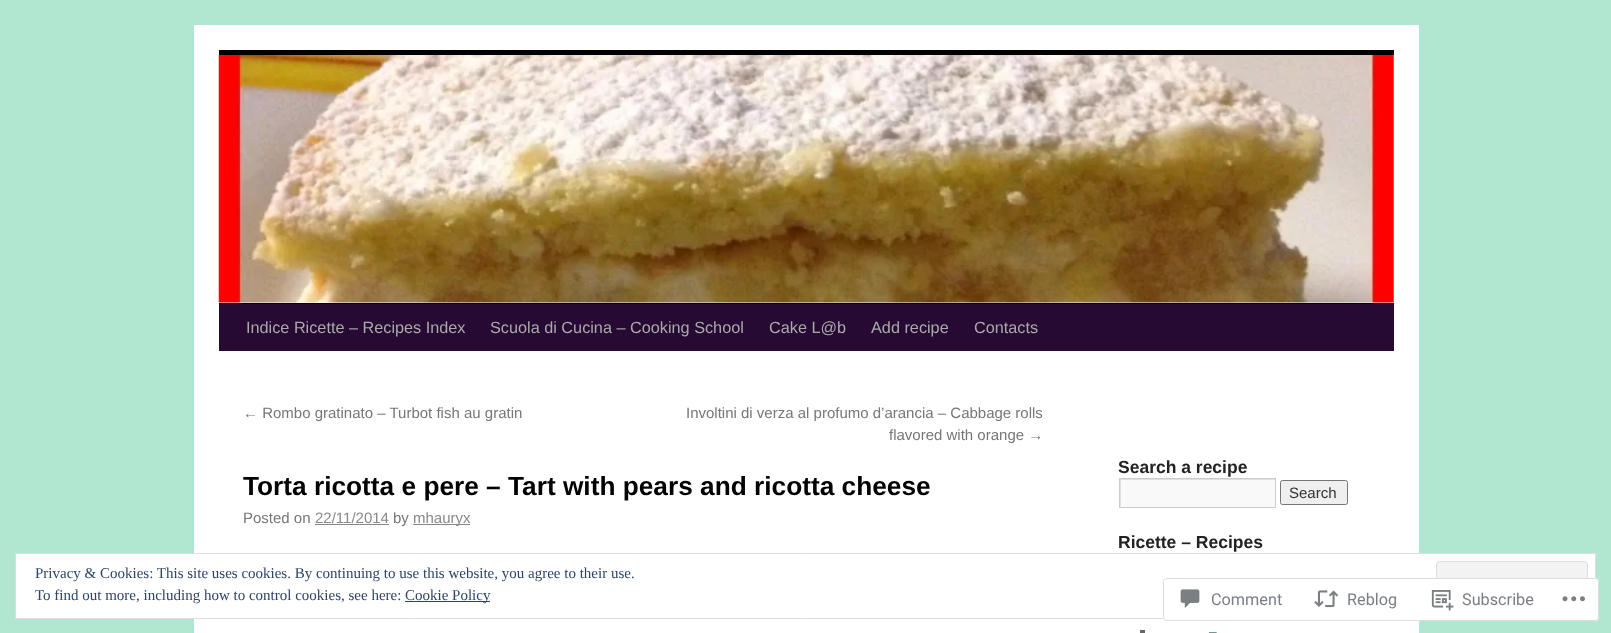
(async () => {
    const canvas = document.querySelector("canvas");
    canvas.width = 1611;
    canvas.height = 633;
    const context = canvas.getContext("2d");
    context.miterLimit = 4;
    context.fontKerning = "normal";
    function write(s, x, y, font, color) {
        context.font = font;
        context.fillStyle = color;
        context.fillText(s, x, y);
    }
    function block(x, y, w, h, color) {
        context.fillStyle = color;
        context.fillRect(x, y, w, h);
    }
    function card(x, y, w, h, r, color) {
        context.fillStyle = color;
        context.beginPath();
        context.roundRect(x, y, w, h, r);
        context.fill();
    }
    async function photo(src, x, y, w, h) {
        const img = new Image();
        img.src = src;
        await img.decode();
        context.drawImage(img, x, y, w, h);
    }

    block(0, 0, 1611, 633, "rgb(177, 230, 209)");
    block(194, 25, 1225, 608, "rgb(255, 255, 255)");
    block(219, 50, 1175, 5, "rgb(0, 0, 0)");
    block(219, 303, 1175, 1, "rgb(0, 0, 0)");
    await photo("media/1.png", 218, 55, 1176, 248);
    block(219, 304, 1175, 47, "rgb(39, 10, 51)");
    write("Indice Ricette – Recipes Index", 246, 333, "16.25px Liberation Sans", "rgb(170, 170, 170)");
    write("Scuola di Cucina – Cooking School", 490, 333, "16.25px Liberation Sans", "rgb(170, 170, 170)");
    write("Cake L@b", 769, 333, "16.25px Liberation Sans", "rgb(170, 170, 170)");
    write("Add recipe", 871, 333, "16.25px Liberation Sans", "rgb(170, 170, 170)");
    write("Contacts", 974, 333, "16.25px Liberation Sans", "rgb(170, 170, 170)");
    write("← Rombo gratinato – Turbot fish au gratin", 243, 418, "15px Liberation Sans", "rgb(119, 119, 119)");
    write("Involtini di verza al profumo d’arancia – Cabbage rolls", 686, 418, "15px Liberation Sans", "rgb(119, 119, 119)");
    write("flavored with orange →", 889, 440, "15px Liberation Sans", "rgb(119, 119, 119)");
    write("Torta ricotta e pere – Tart with pears and ricotta cheese", 243, 495, "bold 26.25px Liberation Sans", "rgb(0, 0, 0)");
    write("Posted on", 243, 523, "15px Liberation Sans", "rgb(119, 119, 119)");
    write("22/11/2014", 315, 523, "15px Liberation Sans", "rgb(136, 136, 136)");
    block(315, 524, 74, 1, "rgb(136, 136, 136)");
    write("by", 393, 523, "15px Liberation Sans", "rgb(119, 119, 119)");
    block(413, 524, 57, 1, "rgb(136, 136, 136)");
    write("mhauryx", 413, 523, "15px Liberation Sans", "rgb(136, 136, 136)");
    write("Search a recipe", 1118, 473, "bold 17.5px Liberation Sans", "rgb(34, 34, 34)");
    block(1120, 480, 155, 27, "rgb(249, 249, 249)");
    context.save();
    context.beginPath();
    context.rect(1120, 479, 155, 27);
    context.clip();
    context.fillStyle = "rgb(224, 224, 224)";
    context.beginPath();
    context.moveTo(996, 355);
    context.lineTo(1399, 355);
    context.lineTo(1399, 630);
    context.lineTo(996, 630);
    context.closePath();
    context.moveTo(1121, 480);
    context.lineTo(1276, 480);
    context.lineTo(1276, 508);
    context.lineTo(1121, 508);
    context.closePath();
    context.fill("evenodd");
    context.restore();
    context.strokeStyle = "rgb(204, 204, 204)";
    context.strokeRect(1119.5, 478.5, 156, 29);
    context.fillStyle = "rgb(239, 239, 239)";
    context.beginPath();
    context.roundRect(1280.5, 480.5, 67, 24, 2);
    context.fill();
    context.strokeStyle = "rgb(118, 118, 118)";
    context.stroke();
    write("Search", 1289, 498, "15px Liberation Sans", "rgb(51, 51, 51)");
    write("Ricette – Recipes", 1118, 548, "bold 17.5px Liberation Sans", "rgb(34, 34, 34)");
    block(1140, 630, 5, 3, "rgb(102, 102, 102)");
    write("–", 1209, 636, "15px Liberation Serif", "rgb(68, 119, 113)");
    context.fillStyle = "rgb(255, 255, 255)";
    context.beginPath();
    context.rect(15.5, 553.5, 1580, 65);
    context.fill();
    context.strokeStyle = "rgb(222, 222, 222)";
    context.stroke();
    write("Privacy & Cookies: This site uses cookies. By continuing to use this website, you agree to their use.", 35, 578, "15px Liberation Serif", "rgb(46, 68, 103)");
    context.fillStyle = "rgb(243, 243, 243)";
    context.beginPath();
    context.roundRect(1436.5, 561.5, 151, 48, 3.5);
    context.fill();
    context.stroke();
    write("To find out more, including how to control cookies, see here:", 35, 600, "15px Liberation Serif", "rgb(46, 68, 103)");
    block(405, 601, 85, 1, "rgb(46, 68, 103)");
    write("Cookie Policy", 405, 600, "15px Liberation Serif", "rgb(46, 68, 103)");
    card(1163, 578, 436, 43, 4, "rgba(255, 255, 255, 0.98)");
    context.beginPath();
    context.roundRect(1163.5, 578.5, 435, 42, 3.5);
    context.strokeStyle = "rgba(220, 220, 222, 0.98)";
    context.stroke();
    await photo("media/2.png", 1180, 589, 20, 19);
    write("Comment", 1211, 605, "16.25px Roboto", "rgb(123, 127, 133)");
    await photo("media/3.png", 1314, 590, 25, 18);
    write("Reblog", 1347, 605, "16.25px Roboto", "rgb(123, 127, 133)");
    await photo("media/4.png", 1431, 590, 23, 21);
    write("Subscribe", 1462, 605, "16.25px Roboto", "rgb(123, 127, 133)");
    await photo("media/5.png", 1562, 596, 23, 6);
})();
